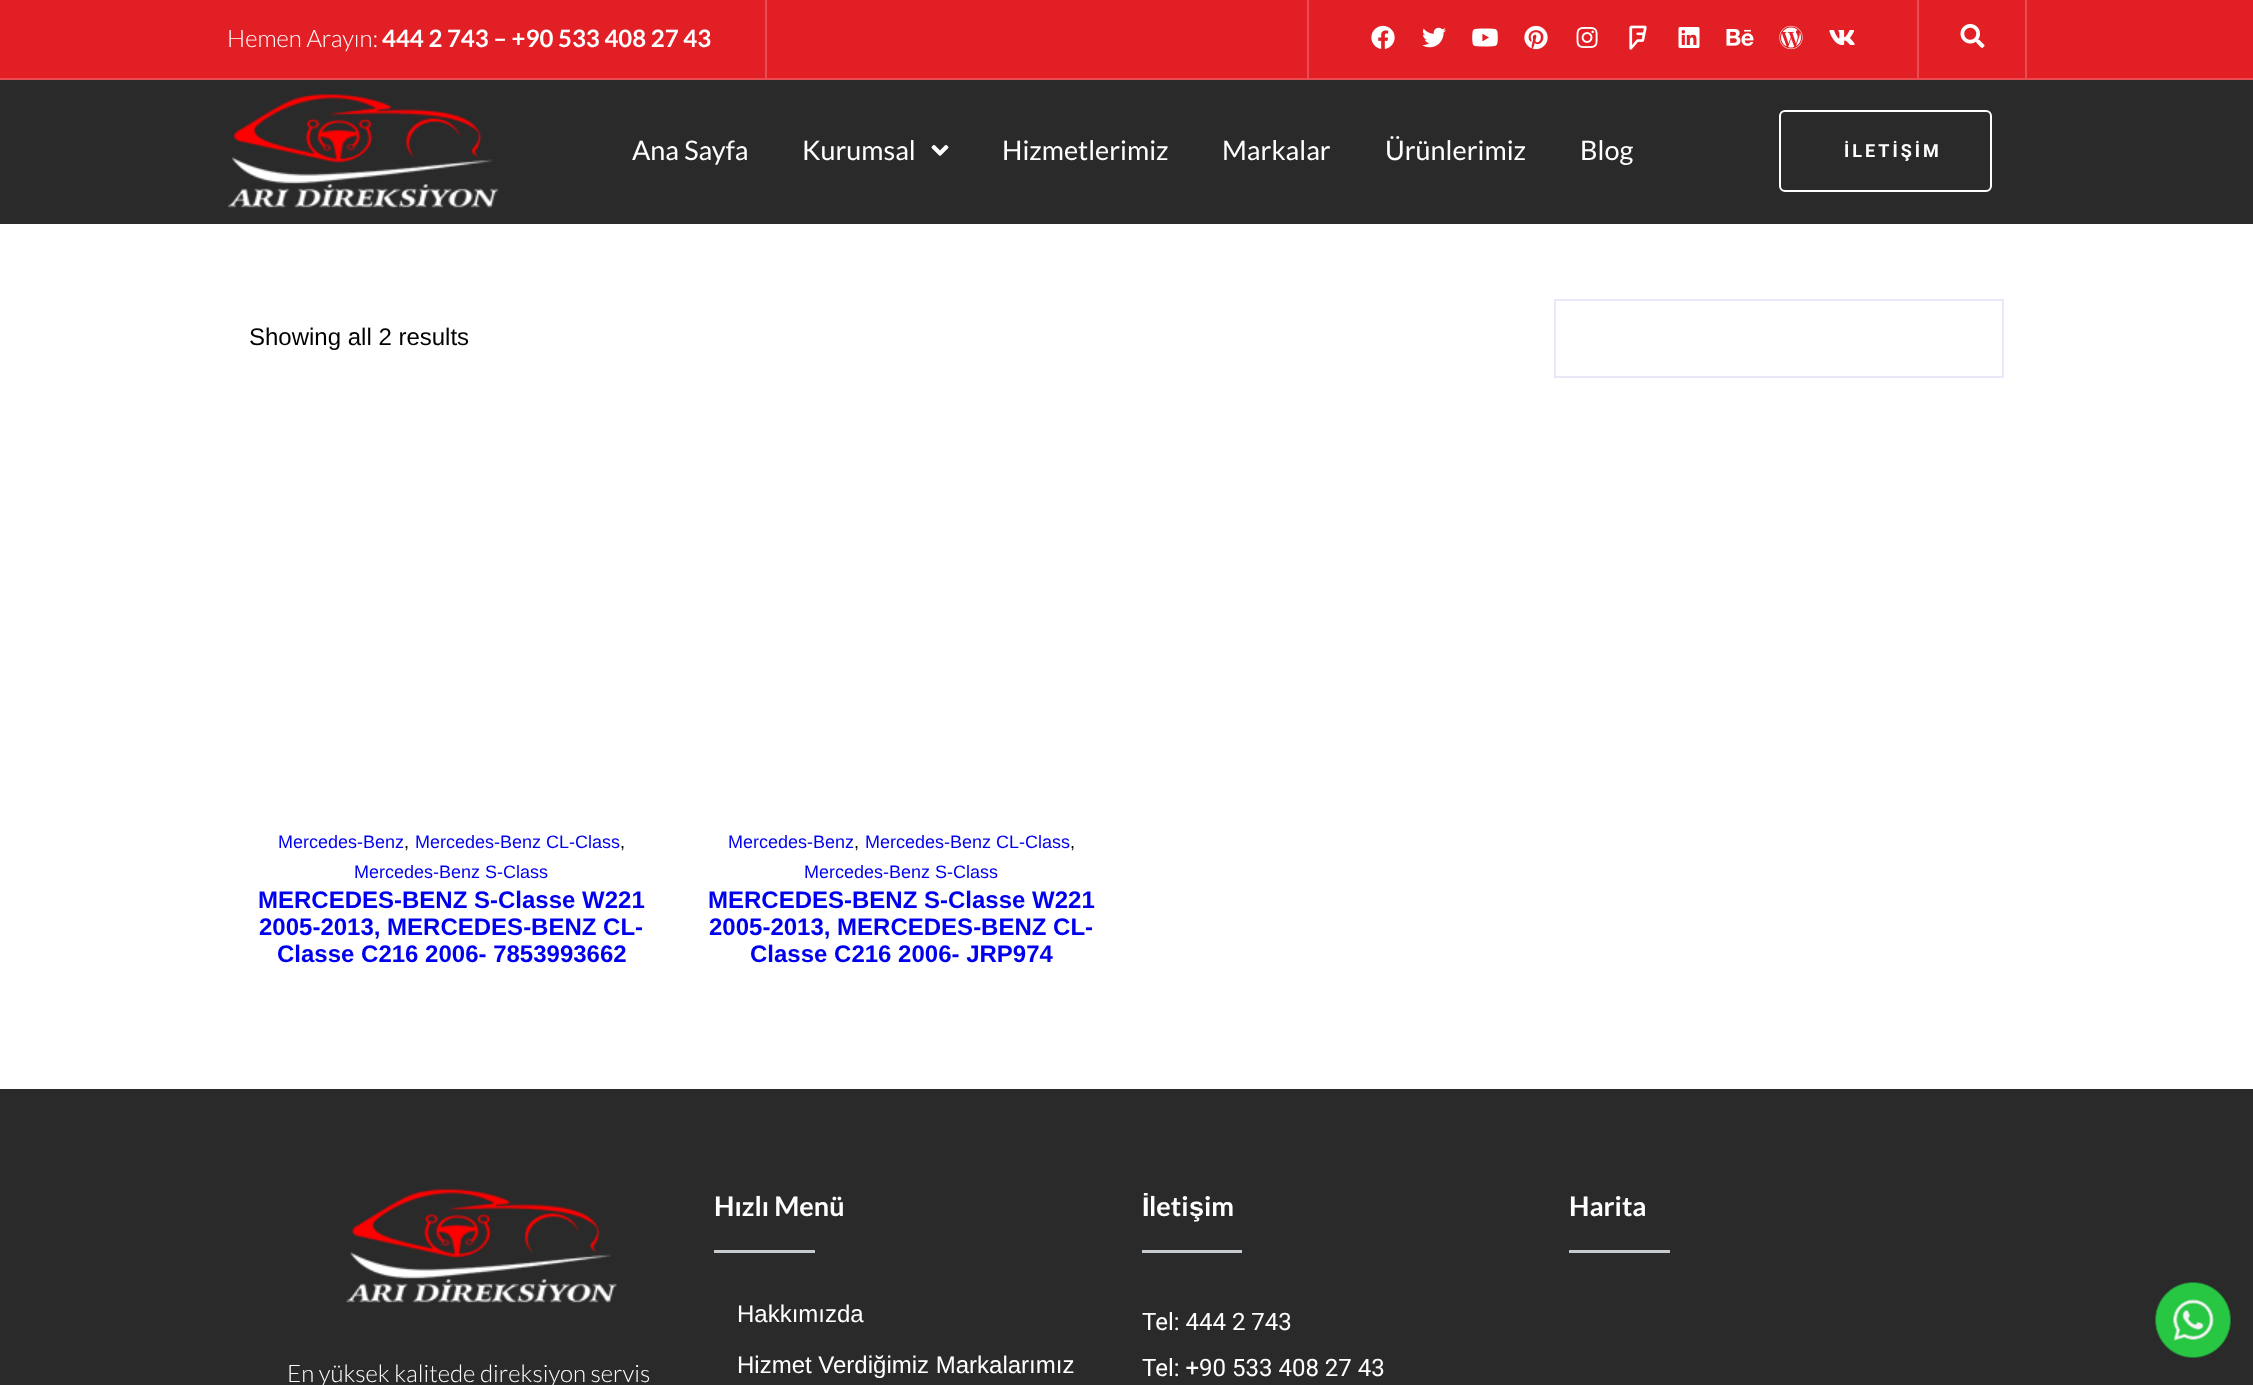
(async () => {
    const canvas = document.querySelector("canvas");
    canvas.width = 2253;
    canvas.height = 1385;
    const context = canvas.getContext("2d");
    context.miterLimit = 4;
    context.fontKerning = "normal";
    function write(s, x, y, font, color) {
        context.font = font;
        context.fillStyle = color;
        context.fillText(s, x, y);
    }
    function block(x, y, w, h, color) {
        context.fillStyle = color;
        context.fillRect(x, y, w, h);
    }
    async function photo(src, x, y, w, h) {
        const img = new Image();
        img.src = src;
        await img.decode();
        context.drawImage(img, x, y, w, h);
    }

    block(0, 0, 2253, 1385, "rgb(255, 255, 255)");
    block(0, 0, 2253, 78, "rgb(226, 31, 37)");
    block(0, 78, 2253, 2, "rgb(232, 76, 81)");
    block(765, 0, 2, 78, "rgb(232, 76, 81)");
    write("Hemen Arayın:", 227, 47, "300 24px Lato", "rgb(255, 255, 255)");
    write("444 2 743 – +90 533 408 27 43", 382, 47, "bold 24px Lato", "rgb(255, 255, 255)");
    block(1917, 0, 2, 78, "rgb(232, 76, 81)");
    block(1307, 0, 2, 78, "rgb(232, 76, 81)");
    await photo("media/1.png", 1371, 25, 24, 24);
    await photo("media/2.png", 1422, 27, 24, 21);
    await photo("media/3.png", 1472, 28, 26, 19);
    await photo("media/4.png", 1524, 25, 24, 25);
    await photo("media/5.png", 1576, 27, 22, 21);
    await photo("media/6.png", 1629, 25, 18, 25);
    await photo("media/7.png", 1678, 27, 22, 21);
    await photo("media/8.png", 1726, 29, 28, 17);
    await photo("media/9.png", 1779, 25, 24, 25);
    await photo("media/10.png", 1829, 30, 26, 15);
    block(2025, 0, 2, 78, "rgb(232, 76, 81)");
    await photo("media/11.png", 1960, 24, 25, 24);
    block(0, 80, 2253, 144, "rgb(42, 42, 42)");
    await photo("media/12.png", 227, 94, 272, 114);
    write("Ana Sayfa", 632, 160, "27px Lato", "rgb(255, 255, 255)");
    write("Kurumsal", 802, 160, "27px Lato", "rgb(255, 255, 255)");
    await photo("media/13.png", 931, 145, 18, 11);
    write("Hizmetlerimiz", 1002, 160, "27px Lato", "rgb(255, 255, 255)");
    write("Markalar", 1222, 160, "27px Lato", "rgb(255, 255, 255)");
    write("Ürünlerimiz", 1385, 160, "27px Lato", "rgb(255, 255, 255)");
    write("Blog", 1580, 160, "27px Lato", "rgb(255, 255, 255)");
    context.beginPath();
    context.roundRect(1780, 111, 211, 80, 5);
    context.strokeStyle = "rgb(255, 255, 255)";
    context.lineWidth = 2;
    context.stroke();
    context.letterSpacing = "3px";
    write("İLETİŞİM", 1844, 157, "bold 18px Roboto", "rgb(255, 255, 255)");
    context.letterSpacing = "0px";
    write("Showing all 2 results", 249, 345, "24px Liberation Sans", "rgb(0, 0, 0)");
    context.strokeStyle = "rgb(232, 232, 248)";
    context.strokeRect(1555, 300, 448, 77);
    write("Mercedes-Benz", 278, 848, "18px Liberation Sans", "rgb(0, 0, 238)");
    write(",", 404, 848, "18px Liberation Sans", "rgb(0, 0, 0)");
    write("Mercedes-Benz CL-Class", 415, 848, "18px Liberation Sans", "rgb(0, 0, 238)");
    write(",", 620, 848, "18px Liberation Sans", "rgb(0, 0, 0)");
    write("Mercedes-Benz S-Class", 354, 878, "18px Liberation Sans", "rgb(0, 0, 238)");
    write("MERCEDES-BENZ S-Classe W221", 258, 908, "bold 24px Liberation Sans", "rgb(0, 0, 238)");
    write("2005-2013, MERCEDES-BENZ CL-", 259, 935, "bold 24px Liberation Sans", "rgb(0, 0, 238)");
    write("Classe C216 2006- 7853993662", 277, 962, "bold 24px Liberation Sans", "rgb(0, 0, 238)");
    write("Mercedes-Benz", 728, 848, "18px Liberation Sans", "rgb(0, 0, 238)");
    write(",", 854, 848, "18px Liberation Sans", "rgb(0, 0, 0)");
    write("Mercedes-Benz CL-Class", 865, 848, "18px Liberation Sans", "rgb(0, 0, 238)");
    write(",", 1070, 848, "18px Liberation Sans", "rgb(0, 0, 0)");
    write("Mercedes-Benz S-Class", 804, 878, "18px Liberation Sans", "rgb(0, 0, 238)");
    write("MERCEDES-BENZ S-Classe W221", 708, 908, "bold 24px Liberation Sans", "rgb(0, 0, 238)");
    write("2005-2013, MERCEDES-BENZ CL-", 709, 935, "bold 24px Liberation Sans", "rgb(0, 0, 238)");
    write("Classe C216 2006- JRP974", 750, 962, "bold 24px Liberation Sans", "rgb(0, 0, 238)");
    block(0, 1089, 2253, 296, "rgb(42, 42, 42)");
    write("Hızlı Menü", 714, 1216, "bold 27px Lato", "rgb(255, 255, 255)");
    block(714, 1250, 101, 3, "rgb(197, 203, 207)");
    write("Hakkımızda", 737, 1322, "24px Liberation Sans", "rgb(255, 255, 255)");
    write("Hizmet Verdiğimiz Markalarımız", 737, 1373, "24px Liberation Sans", "rgb(255, 255, 255)");
    write("İ", 1142, 1216, "bold 27px Liberation Sans", "rgb(255, 255, 255)");
    write("leti", 1149, 1216, "bold 27px Lato", "rgb(255, 255, 255)");
    write("ş", 1189, 1216, "bold 27px Liberation Sans", "rgb(255, 255, 255)");
    write("im", 1204, 1216, "bold 27px Lato", "rgb(255, 255, 255)");
    block(1142, 1250, 100, 3, "rgb(197, 203, 207)");
    write("Tel: 444 2 743", 1142, 1330, "24px Roboto", "rgb(255, 255, 255)");
    write("Tel: +90 533 408 27 43", 1142, 1376, "24px Roboto", "rgb(255, 255, 255)");
    write("Harita", 1569, 1216, "bold 27px Lato", "rgb(255, 255, 255)");
    block(1569, 1250, 101, 3, "rgb(197, 203, 207)");
    await photo("media/14.png", 346, 1189, 271, 114);
    write("En yüksek kalitede direksiyon servis", 287, 1382, "300 24px Lato", "rgb(255, 255, 255)");
    await photo("media/15.png", 2155, 1282, 76, 76);
})();
